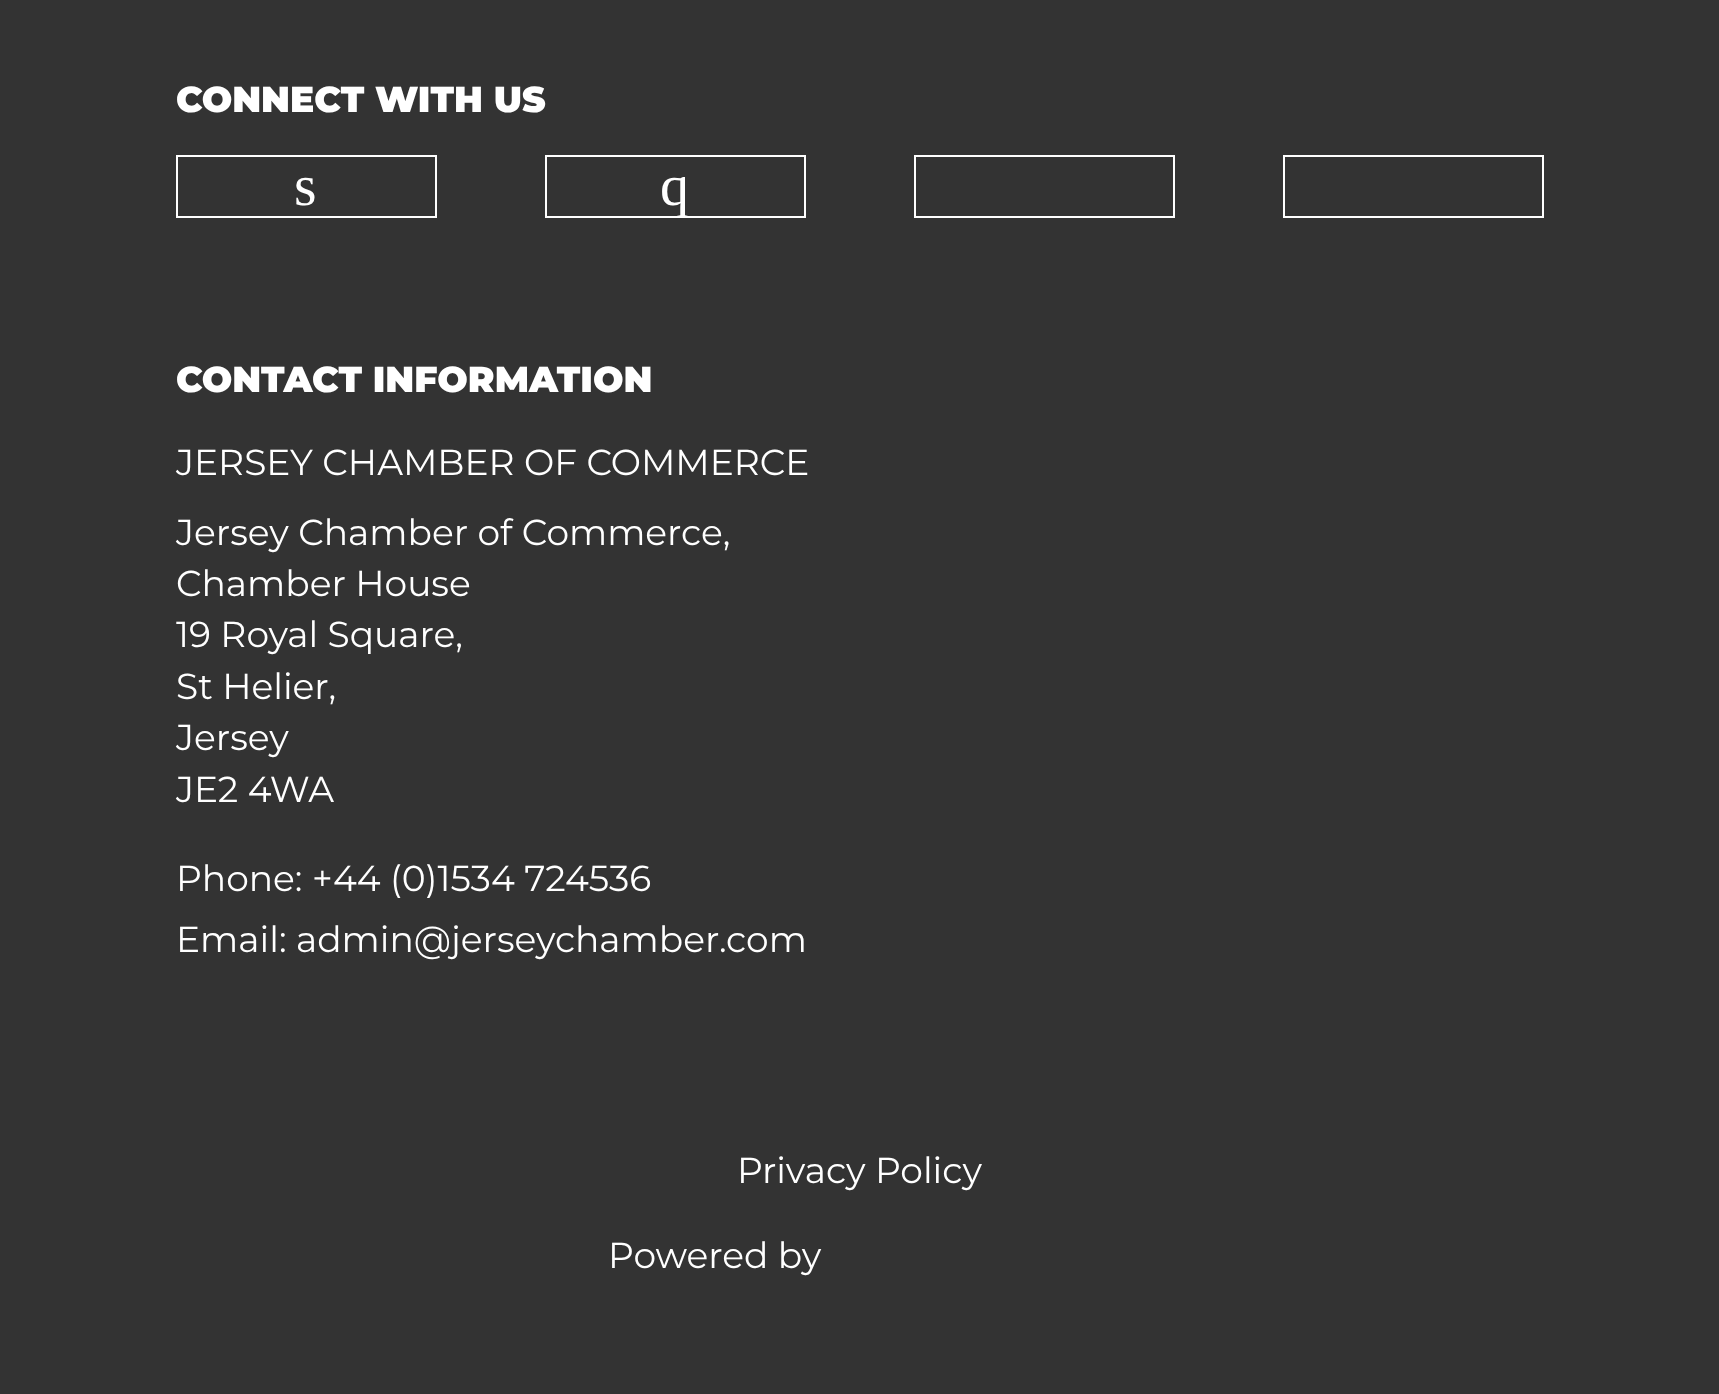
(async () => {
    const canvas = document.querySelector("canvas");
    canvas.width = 1719;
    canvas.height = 1394;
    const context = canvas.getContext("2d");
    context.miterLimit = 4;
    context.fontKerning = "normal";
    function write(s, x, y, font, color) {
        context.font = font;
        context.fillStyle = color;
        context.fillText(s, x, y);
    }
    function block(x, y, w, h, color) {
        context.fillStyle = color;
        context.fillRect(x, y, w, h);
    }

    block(0, 0, 1719, 1394, "rgb(51, 51, 51)");
    write("CONNECT WITH US", 176, 112, "900 36px Montserrat", "rgb(255, 255, 255)");
    context.strokeStyle = "rgb(255, 255, 255)";
    context.lineWidth = 2;
    context.strokeRect(177, 156, 259, 61);
    write("s", 294, 205, "58px Liberation Serif", "rgb(255, 255, 255)");
    context.strokeRect(546, 156, 259, 61);
    write("q", 660, 205, "58px Liberation Serif", "rgb(255, 255, 255)");
    context.strokeRect(915, 156, 259, 61);
    context.strokeRect(1284, 156, 259, 61);
    write("CONTACT INFORMATION", 176, 392, "900 36px Montserrat", "rgb(255, 255, 255)");
    write("JERSEY CHAMBER OF COMMERCE", 176, 475, "36px Montserrat", "rgb(255, 255, 255)");
    write("Jersey Chamber of Commerce,", 176, 545, "36px Montserrat", "rgb(255, 255, 255)");
    write("Chamber House", 176, 596, "36px Montserrat", "rgb(255, 255, 255)");
    write("19 Royal Square,", 176, 647, "36px Montserrat", "rgb(255, 255, 255)");
    write("St Helier,", 176, 699, "36px Montserrat", "rgb(255, 255, 255)");
    write("Jersey", 176, 750, "36px Montserrat", "rgb(255, 255, 255)");
    write("JE2 4WA", 176, 802, "36px Montserrat", "rgb(255, 255, 255)");
    write("Phone: +44 (0)1534 724536", 176, 891, "36px Montserrat", "rgb(255, 255, 255)");
    write("Email: admin@jerseychamber.com", 176, 952, "36px Montserrat", "rgb(255, 255, 255)");
    write("Privacy Policy", 737, 1183, "36px Montserrat", "rgb(255, 255, 255)");
    write("Powered by", 608, 1268, "36px Montserrat", "rgb(255, 255, 255)");
})();
